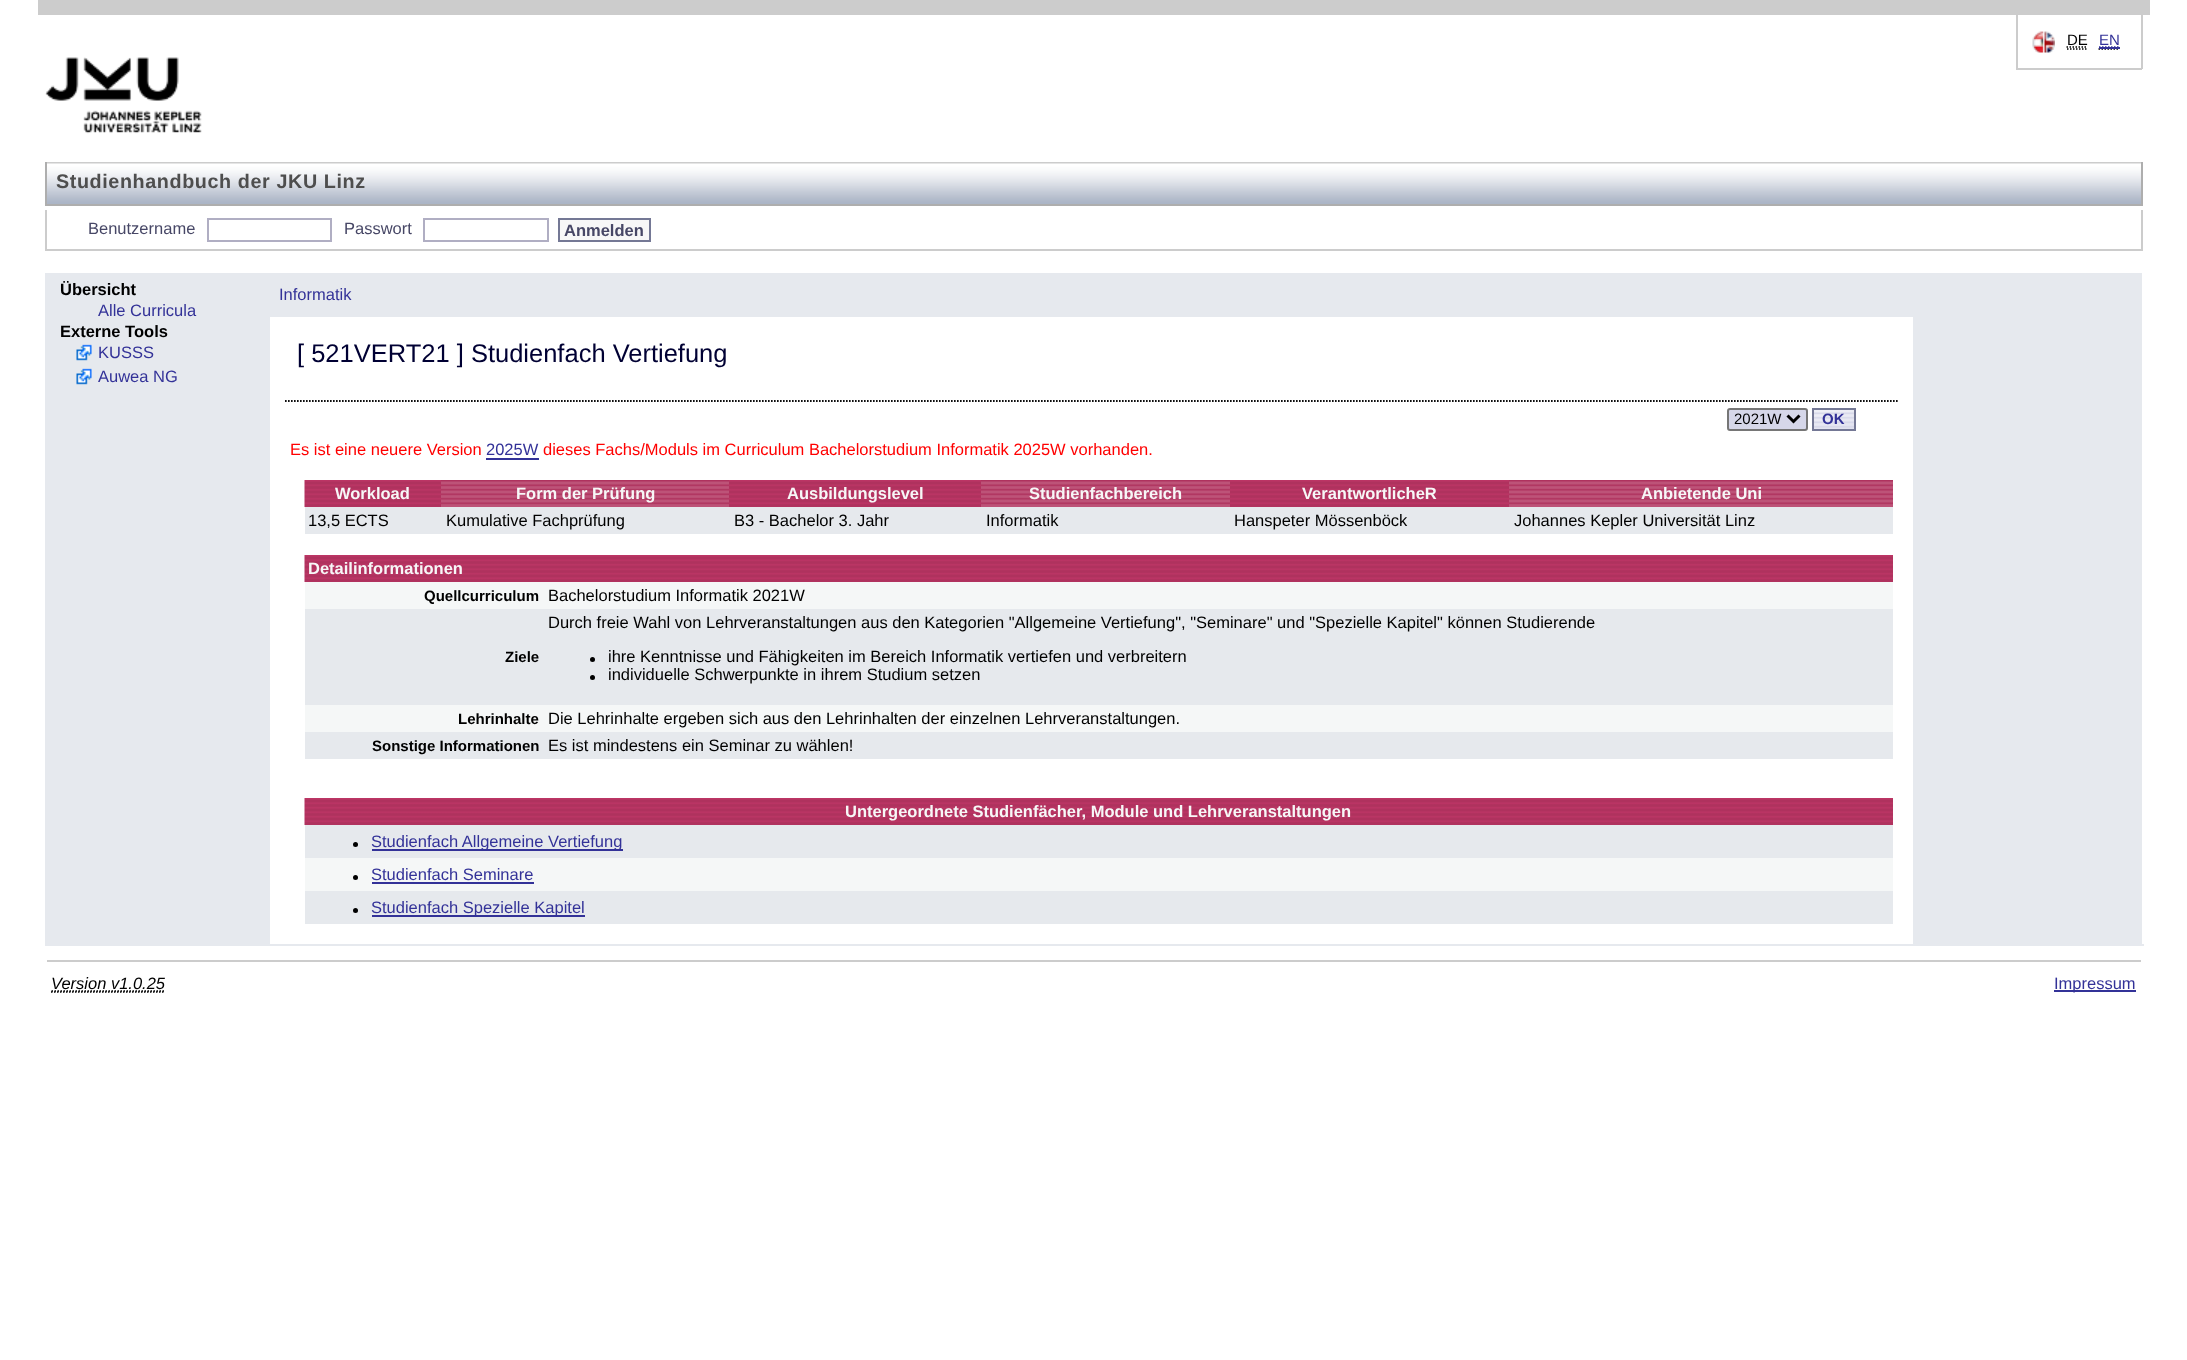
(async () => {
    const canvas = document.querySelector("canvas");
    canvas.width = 2187;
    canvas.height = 1360;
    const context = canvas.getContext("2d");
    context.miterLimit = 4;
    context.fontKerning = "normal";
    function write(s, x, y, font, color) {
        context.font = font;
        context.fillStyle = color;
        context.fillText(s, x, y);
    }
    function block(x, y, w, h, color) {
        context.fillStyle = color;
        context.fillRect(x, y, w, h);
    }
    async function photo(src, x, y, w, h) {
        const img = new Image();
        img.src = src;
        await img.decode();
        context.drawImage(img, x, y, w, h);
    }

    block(0, 0, 2187, 1360, "rgb(255, 255, 255)");
    block(38, 0, 2112, 15, "rgb(204, 204, 204)");
    block(2141, 15, 2, 54, "rgb(204, 204, 204)");
    block(2016, 68, 126, 2, "rgb(204, 204, 204)");
    block(2016, 15, 2, 54, "rgb(204, 204, 204)");
    await photo("media/1.png", 2032, 31, 23, 22);
    write("DE", 2067, 45, "15px Liberation Sans", "rgb(0, 0, 0)");
    context.beginPath();
    context.moveTo(2067, 49);
    context.lineTo(2086.5, 49);
    context.moveTo(2066.5, 47);
    context.lineTo(2087, 47);
    context.strokeStyle = "rgb(0, 0, 0)";
    context.lineWidth = 1.5;
    context.setLineDash([1.5, 1.5]);
    context.stroke();
    write("EN", 2099, 45, "15px Liberation Sans", "rgb(51, 50, 152)");
    context.beginPath();
    context.moveTo(2098.5, 49);
    context.lineTo(2119.5, 49);
    context.stroke();
    context.beginPath();
    context.moveTo(2099, 47);
    context.lineTo(2119.5, 47);
    context.strokeStyle = "rgb(51, 50, 152)";
    context.stroke();
    block(2099, 47, 21, 2, "rgb(51, 50, 152)");
    await photo("media/2.png", 45, 57, 157, 77);
    await photo("media/3.png", 47, 162, 2094, 42);
    block(2141, 162, 2, 44, "rgb(174, 174, 174)");
    block(45, 204, 2097, 2, "rgb(174, 174, 174)");
    block(45, 162, 2, 44, "rgb(174, 174, 174)");
    context.letterSpacing = "0.6px";
    write("Studienhandbuch der JKU Linz", 56, 188, "bold 19.75px Liberation Sans", "rgb(78, 78, 78)");
    block(2141, 210, 2, 41, "rgb(204, 204, 204)");
    block(45, 249, 2097, 2, "rgb(204, 204, 204)");
    block(45, 210, 2, 41, "rgb(204, 204, 204)");
    context.letterSpacing = "0px";
    write("Benutzername", 88, 234, "16.5px Liberation Sans", "rgb(71, 71, 102)");
    context.strokeStyle = "rgb(176, 174, 195)";
    context.lineWidth = 2;
    context.setLineDash([]);
    context.strokeRect(208, 219, 123, 22);
    write("Passwort", 344, 234, "16.5px Liberation Sans", "rgb(71, 71, 102)");
    context.strokeRect(424, 219, 124, 22);
    context.fillStyle = "rgb(247, 247, 247)";
    context.beginPath();
    context.rect(559, 219, 91, 22);
    context.fill();
    context.strokeStyle = "rgb(116, 120, 149)";
    context.stroke();
    write("Anmelden", 564, 236, "bold 16.5px Liberation Sans", "rgb(71, 71, 102)");
    block(45, 273, 225, 671, "rgb(230, 233, 238)");
    write("Übersicht", 60, 295, "bold 16.5px Liberation Sans", "rgb(0, 0, 0)");
    write("Alle Curricula", 98, 316, "16.5px Liberation Sans", "rgb(51, 50, 152)");
    write("Externe Tools", 60, 337, "bold 16.5px Liberation Sans", "rgb(0, 0, 0)");
    await photo("media/4.png", 76, 344, 16, 17);
    write("KUSSS", 98, 358, "16.5px Liberation Sans", "rgb(51, 50, 152)");
    await photo("media/4.png", 76, 368, 16, 17);
    write("Auwea NG", 98, 382, "16.5px Liberation Sans", "rgb(51, 50, 152)");
    block(270, 273, 1872, 44, "rgb(230, 233, 238)");
    write("Informatik", 279, 300, "16.5px Liberation Sans", "rgb(51, 50, 152)");
    block(1913, 315, 2, 629, "rgb(230, 233, 238)");
    context.beginPath();
    context.moveTo(285, 401);
    context.lineTo(1897.5, 401);
    context.strokeStyle = "rgb(0, 0, 0)";
    context.lineWidth = 1.5;
    context.setLineDash([1.5, 1.5]);
    context.stroke();
    context.beginPath();
    context.moveTo(285, 401);
    context.lineTo(1897.5, 401);
    context.stroke();
    write("[ 521VERT21 ] Studienfach Vertiefung", 297, 362, "25.5px Liberation Sans", "rgb(0, 0, 51)");
    context.fillStyle = "rgb(214, 215, 233)";
    context.beginPath();
    context.roundRect(1728, 409, 79, 21, 2);
    context.fill();
    context.strokeStyle = "rgb(118, 118, 118)";
    context.lineWidth = 2;
    context.setLineDash([]);
    context.stroke();
    context.beginPath();
    context.moveTo(1787.5, 415.5);
    context.lineTo(1793.5, 421.5);
    context.lineTo(1799.5, 415.5);
    context.strokeStyle = "rgb(0, 0, 0)";
    context.lineWidth = 3;
    context.stroke();
    write("2021W", 1734, 424, "15px Liberation Sans", "rgb(0, 0, 0)");
    await photo("media/5.png", 1814, 410, 40, 19);
    context.strokeStyle = "rgb(116, 120, 149)";
    context.lineWidth = 2;
    context.strokeRect(1813, 409, 42, 21);
    write("OK", 1822, 424, "bold 15px Liberation Sans", "rgb(51, 50, 152)");
    write("Es ist eine neuere Version", 290, 455, "16.5px Liberation Sans", "rgb(255, 0, 0)");
    write("2025W", 486, 455, "16.5px Liberation Sans", "rgb(51, 50, 152)");
    block(486, 458, 53, 2, "rgb(51, 50, 152)");
    write("dieses Fachs/Moduls im Curriculum Bachelorstudium Informatik 2025W vorhanden.", 543, 455, "16.5px Liberation Sans", "rgb(255, 0, 0)");
    await photo("media/6.png", 304, 480, 137, 27);
    write("Workload", 335, 499, "bold 16.5px Liberation Sans", "rgb(247, 247, 247)");
    await photo("media/7.png", 441, 480, 288, 27);
    write("Form der Prüfung", 516, 499, "bold 16.5px Liberation Sans", "rgb(247, 247, 247)");
    await photo("media/8.png", 729, 480, 252, 27);
    write("Ausbildungslevel", 787, 499, "bold 16.5px Liberation Sans", "rgb(247, 247, 247)");
    await photo("media/9.png", 981, 480, 249, 27);
    write("Studienfachbereich", 1029, 499, "bold 16.5px Liberation Sans", "rgb(247, 247, 247)");
    await photo("media/10.png", 1230, 480, 279, 27);
    write("VerantwortlicheR", 1302, 499, "bold 16.5px Liberation Sans", "rgb(247, 247, 247)");
    await photo("media/11.png", 1509, 480, 384, 27);
    write("Anbietende Uni", 1641, 499, "bold 16.5px Liberation Sans", "rgb(247, 247, 247)");
    block(305, 507, 1588, 27, "rgb(230, 233, 237)");
    write("13,5 ECTS", 308, 526, "16.5px Liberation Sans", "rgb(0, 0, 0)");
    write("Kumulative Fachprüfung", 446, 526, "16.5px Liberation Sans", "rgb(0, 0, 0)");
    write("B3 - Bachelor 3. Jahr", 734, 526, "16.5px Liberation Sans", "rgb(0, 0, 0)");
    write("Informatik", 986, 526, "16.5px Liberation Sans", "rgb(0, 0, 0)");
    write("Hanspeter Mössenböck", 1234, 526, "16.5px Liberation Sans", "rgb(0, 0, 0)");
    write("Johannes Kepler Universität Linz", 1514, 526, "16.5px Liberation Sans", "rgb(0, 0, 0)");
    await photo("media/12.png", 304, 555, 1589, 27);
    write("Detailinformationen", 308, 574, "bold 16.5px Liberation Sans", "rgb(247, 247, 247)");
    block(305, 582, 1588, 27, "rgb(245, 247, 247)");
    write("Quellcurriculum", 424, 601, "bold 15px Liberation Sans", "rgb(0, 0, 0)");
    write("Bachelorstudium Informatik 2021W", 548, 601, "16.5px Liberation Sans", "rgb(0, 0, 0)");
    block(305, 609, 1588, 96, "rgb(230, 233, 237)");
    write("Ziele", 505, 662, "bold 15px Liberation Sans", "rgb(0, 0, 0)");
    write("Durch freie Wahl von Lehrveranstaltungen aus den Kategorien \"Allgemeine Vertiefung\", \"Seminare\" und \"Spezielle Kapitel\" können Studierende", 548, 628, "16.5px Liberation Sans", "rgb(0, 0, 0)");
    context.beginPath();
    context.arc(592.5, 659.5, 2.5, 0, Math.PI * 2);
    context.fill();
    write("ihre Kenntnisse und Fähigkeiten im Bereich Informatik vertiefen und verbreitern", 608, 662, "16.5px Liberation Sans", "rgb(0, 0, 0)");
    context.beginPath();
    context.arc(592.5, 677.5, 2.5, 0, Math.PI * 2);
    context.fill();
    write("individuelle Schwerpunkte in ihrem Studium setzen", 608, 680, "16.5px Liberation Sans", "rgb(0, 0, 0)");
    block(305, 705, 1588, 27, "rgb(245, 247, 247)");
    write("Lehrinhalte", 458, 724, "bold 15px Liberation Sans", "rgb(0, 0, 0)");
    write("Die Lehrinhalte ergeben sich aus den Lehrinhalten der einzelnen Lehrveranstaltungen.", 548, 724, "16.5px Liberation Sans", "rgb(0, 0, 0)");
    block(305, 732, 1588, 27, "rgb(230, 233, 237)");
    write("Sonstige Informationen", 372, 751, "bold 15px Liberation Sans", "rgb(0, 0, 0)");
    write("Es ist mindestens ein Seminar zu wählen!", 548, 751, "16.5px Liberation Sans", "rgb(0, 0, 0)");
    await photo("media/13.png", 304, 798, 1589, 27);
    write("Untergeordnete Studienfächer, Module und Lehrveranstaltungen", 845, 817, "bold 16.5px Liberation Sans", "rgb(247, 247, 247)");
    block(305, 825, 1588, 33, "rgb(230, 233, 237)");
    context.fillStyle = "rgb(0, 0, 0)";
    context.beginPath();
    context.arc(355.5, 844.5, 2.5, 0, Math.PI * 2);
    context.fill();
    block(372, 849, 251, 2, "rgb(51, 50, 152)");
    write("Studienfach Allgemeine Vertiefung", 371, 847, "16.5px Liberation Sans", "rgb(51, 50, 152)");
    block(305, 858, 1588, 33, "rgb(245, 247, 247)");
    context.fillStyle = "rgb(0, 0, 0)";
    context.beginPath();
    context.arc(355.5, 877.5, 2.5, 0, Math.PI * 2);
    context.fill();
    write("Studienfach Seminare", 371, 880, "16.5px Liberation Sans", "rgb(51, 50, 152)");
    block(372, 882, 162, 2, "rgb(51, 50, 152)");
    block(305, 891, 1588, 33, "rgb(230, 233, 237)");
    context.fillStyle = "rgb(0, 0, 0)";
    context.beginPath();
    context.arc(355.5, 910.5, 2.5, 0, Math.PI * 2);
    context.fill();
    block(372, 915, 213, 2, "rgb(51, 50, 152)");
    write("Studienfach Spezielle Kapitel", 371, 913, "16.5px Liberation Sans", "rgb(51, 50, 152)");
    block(1915, 317, 227, 627, "rgb(230, 233, 238)");
    block(45, 944, 2099, 2, "rgb(230, 233, 238)");
    block(47, 960, 2094, 2, "rgb(204, 204, 204)");
    write("Version v1.0.25", 51, 989, "italic 16.5px Liberation Sans", "rgb(0, 0, 0)");
    context.beginPath();
    context.moveTo(51, 992);
    context.lineTo(165, 992);
    context.strokeStyle = "rgb(0, 0, 0)";
    context.lineWidth = 1.5;
    context.setLineDash([1.5, 1.5]);
    context.stroke();
    context.beginPath();
    context.moveTo(51.5, 991);
    context.lineTo(165.5, 991);
    context.stroke();
    block(2054, 990, 82, 2, "rgb(51, 50, 152)");
    write("Impressum", 2054, 989, "16.5px Liberation Sans", "rgb(51, 50, 152)");
})();
